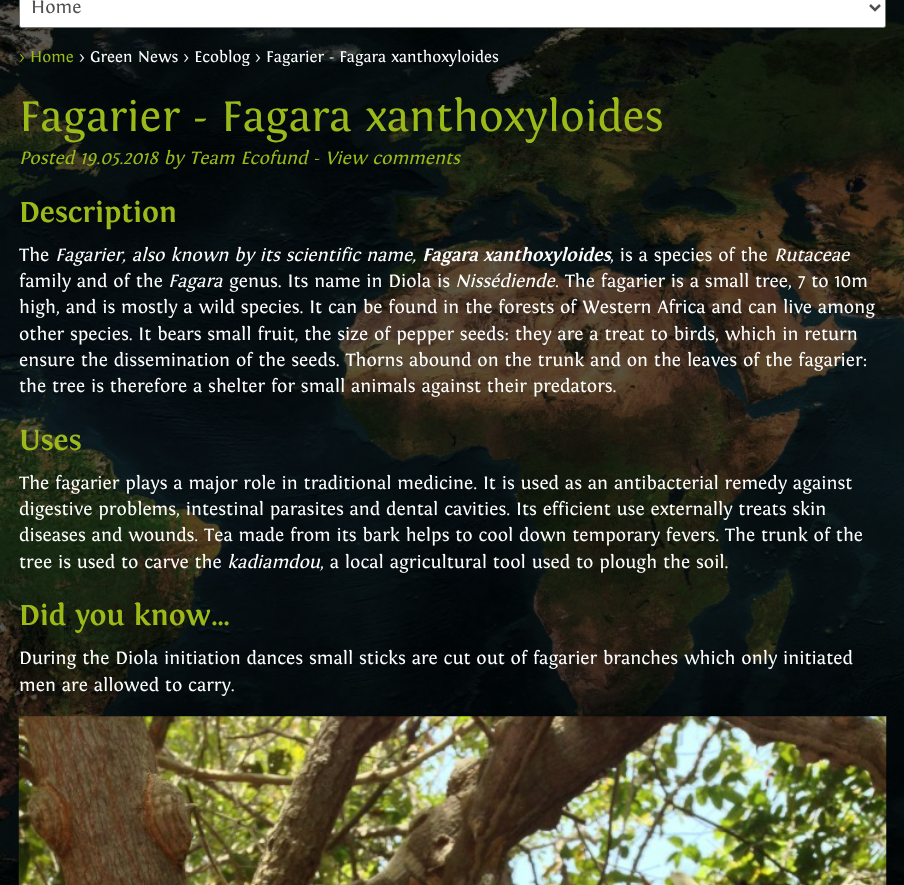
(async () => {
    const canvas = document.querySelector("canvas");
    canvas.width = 904;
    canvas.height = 885;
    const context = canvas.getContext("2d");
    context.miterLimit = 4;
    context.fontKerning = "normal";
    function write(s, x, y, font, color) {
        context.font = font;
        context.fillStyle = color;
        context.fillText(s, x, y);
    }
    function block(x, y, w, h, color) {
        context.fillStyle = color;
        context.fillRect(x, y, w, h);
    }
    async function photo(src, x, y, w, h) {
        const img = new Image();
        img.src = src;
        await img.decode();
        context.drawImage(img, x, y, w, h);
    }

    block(0, 0, 904, 885, "rgb(255, 255, 255)");
    await photo("media/1.png", 0, 0, 904, 885);
    context.beginPath();
    context.roundRect(19.5, -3.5, 866, 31, 2);
    context.fill();
    context.strokeStyle = "rgb(118, 118, 118)";
    context.stroke();
    context.beginPath();
    context.moveTo(870, 5);
    context.lineTo(875, 10);
    context.lineTo(880, 5);
    context.strokeStyle = "rgb(80, 80, 80)";
    context.lineWidth = 2.5;
    context.stroke();
    write("Home", 31, 13, "18.75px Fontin", "rgb(80, 80, 80)");
    write("› Home", 19, 62, "16.25px Fontin", "rgb(155, 186, 26)");
    write("› Green News › Ecoblog › Fagarier - Fagara xanthoxyloides", 79, 62, "16.25px Fontin", "rgb(255, 255, 255)");
    write("Fagarier - Fagara xanthoxyloides", 19, 131, "45px Fontin", "rgb(155, 186, 26)");
    write("Posted 19.05.2018 by Team Ecofund - View comments", 19, 164, "italic 18.75px Fontin", "rgb(155, 186, 26)");
    write("Description", 19, 222, "bold 30px Fontin", "rgb(155, 186, 26)");
    write("The", 19, 261, "18.75px Fontin", "rgb(255, 255, 255)");
    write("Fagarier, also known by its scientific name,", 55, 261, "italic 18.75px Fontin", "rgb(255, 255, 255)");
    write("Fagara xanthoxyloides", 422, 261, "italic bold 18.75px Fontin", "rgb(255, 255, 255)");
    write(", is a species of the", 610, 261, "18.75px Fontin", "rgb(255, 255, 255)");
    write("Rutaceae", 774, 261, "italic 18.75px Fontin", "rgb(255, 255, 255)");
    write("family and of the", 19, 287, "18.75px Fontin", "rgb(255, 255, 255)");
    write("Fagara", 168, 287, "italic 18.75px Fontin", "rgb(255, 255, 255)");
    write("genus. Its name in Diola is", 229, 287, "18.75px Fontin", "rgb(255, 255, 255)");
    write("Nissédiende", 455, 287, "italic 18.75px Fontin", "rgb(255, 255, 255)");
    write(". The fagarier is a small tree, 7 to 10m", 555, 287, "18.75px Fontin", "rgb(255, 255, 255)");
    write("high, and is mostly a wild species. It can be found in the forests of Western Africa and can live among", 19, 313, "18.75px Fontin", "rgb(255, 255, 255)");
    write("other species. It bears small fruit, the size of pepper seeds: they are a treat to birds, which in return", 19, 340, "18.75px Fontin", "rgb(255, 255, 255)");
    write("ensure the dissemination of the seeds. Thorns abound on the trunk and on the leaves of the fagarier:", 19, 366, "18.75px Fontin", "rgb(255, 255, 255)");
    write("the tree is therefore a shelter for small animals against their predators.", 19, 392, "18.75px Fontin", "rgb(255, 255, 255)");
    write("Uses", 19, 450, "bold 30px Fontin", "rgb(155, 186, 26)");
    write("The fagarier plays a major role in traditional medicine. It is used as an antibacterial remedy against", 19, 489, "18.75px Fontin", "rgb(255, 255, 255)");
    write("digestive problems, intestinal parasites and dental cavities. Its efficient use externally treats skin", 19, 515, "18.75px Fontin", "rgb(255, 255, 255)");
    write("diseases and wounds. Tea made from its bark helps to cool down temporary fevers. The trunk of the", 19, 541, "18.75px Fontin", "rgb(255, 255, 255)");
    write("tree is used to carve the", 19, 568, "18.75px Fontin", "rgb(255, 255, 255)");
    write("kadiamdou", 227, 568, "italic 18.75px Fontin", "rgb(255, 255, 255)");
    write(", a local agricultural tool used to plough the soil.", 320, 568, "18.75px Fontin", "rgb(255, 255, 255)");
    write("Did you know…", 19, 625, "bold 30px Fontin", "rgb(155, 186, 26)");
    write("During the Diola initiation dances small sticks are cut out of fagarier branches which only initiated", 19, 664, "18.75px Fontin", "rgb(255, 255, 255)");
    write("men are allowed to carry.", 19, 691, "18.75px Fontin", "rgb(255, 255, 255)");
    await photo("media/2.png", 18, 716, 869, 169);
})();
